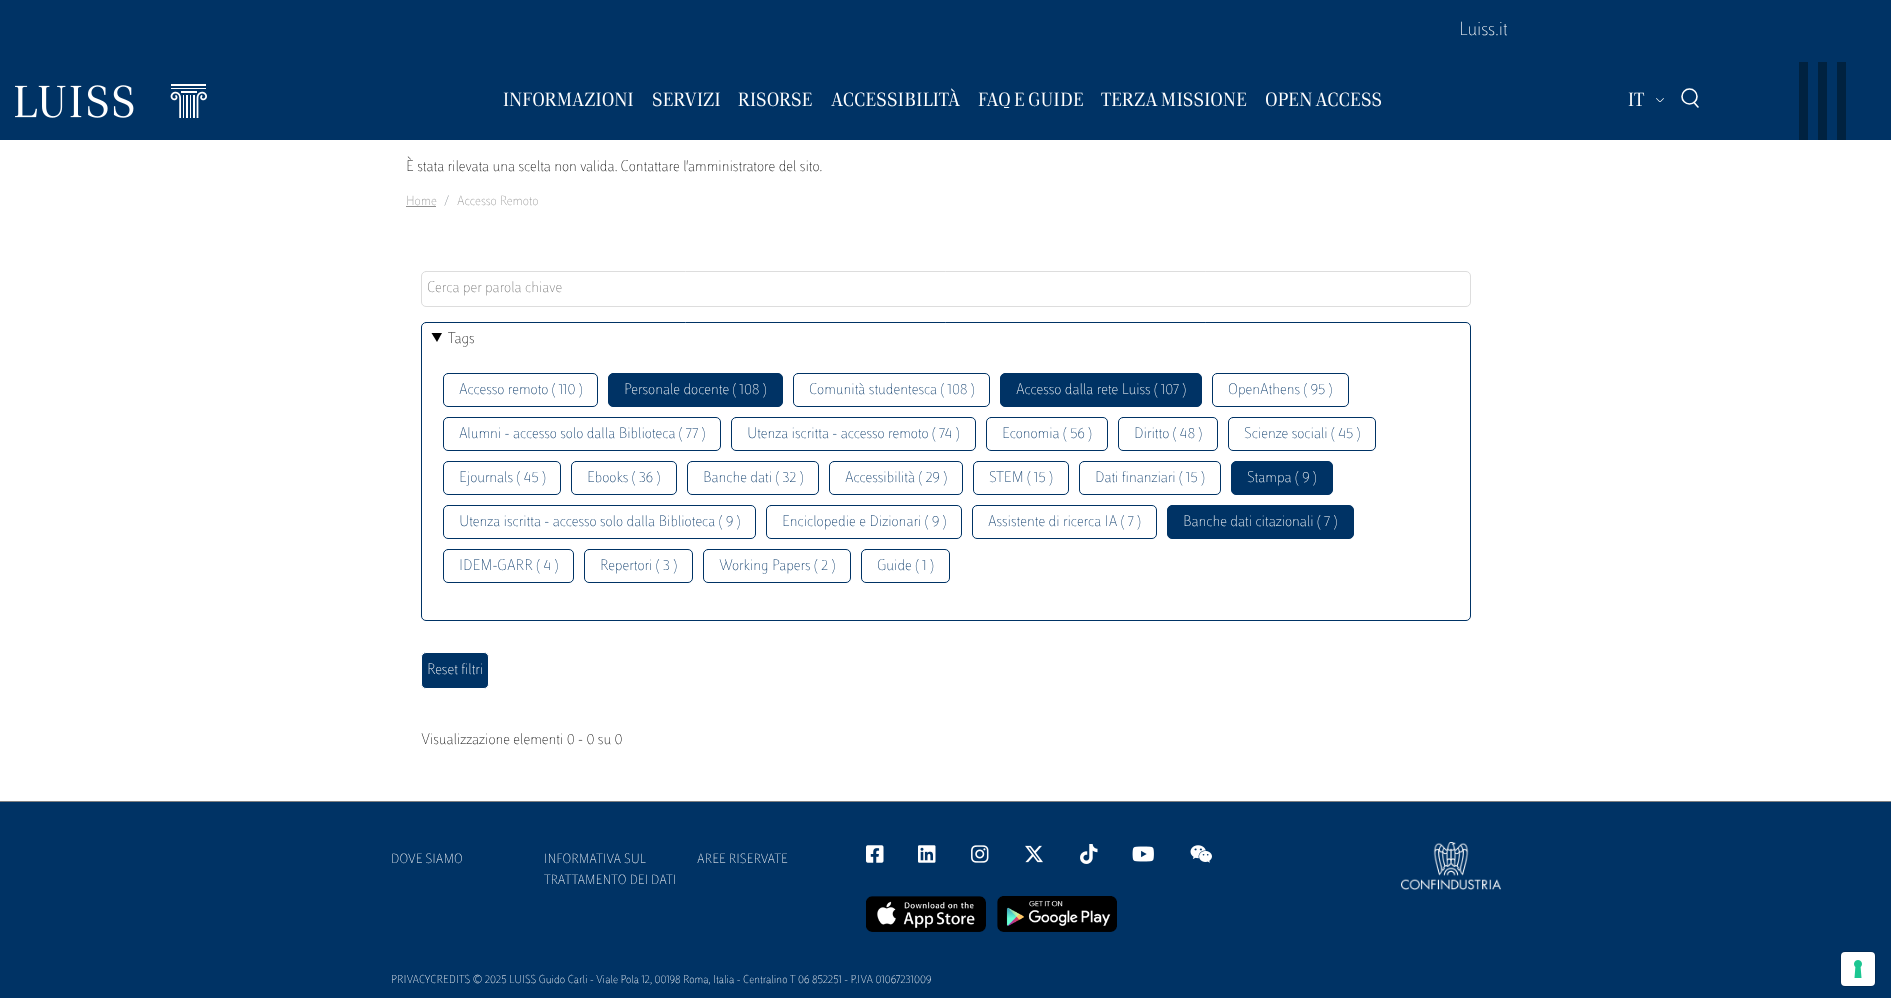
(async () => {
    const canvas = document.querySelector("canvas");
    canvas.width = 1891;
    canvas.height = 1002;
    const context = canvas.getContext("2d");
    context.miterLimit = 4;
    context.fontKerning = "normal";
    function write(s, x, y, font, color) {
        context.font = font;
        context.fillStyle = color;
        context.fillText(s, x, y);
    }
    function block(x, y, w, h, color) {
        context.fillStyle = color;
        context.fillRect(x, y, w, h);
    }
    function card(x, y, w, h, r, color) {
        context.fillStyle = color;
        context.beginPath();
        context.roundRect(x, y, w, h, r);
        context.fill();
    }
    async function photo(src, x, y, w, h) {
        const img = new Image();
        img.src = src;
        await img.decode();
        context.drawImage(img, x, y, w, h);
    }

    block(0, 0, 1891, 1002, "rgb(255, 255, 255)");
    block(0, 0, 1891, 140, "rgb(0, 51, 101)");
    write("Luiss.it", 1459, 35, "100 20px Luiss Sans", "rgb(255, 255, 255)");
    await photo("media/1.png", 15, 84, 192, 34);
    write("INFORMAZIONI", 503, 106, "20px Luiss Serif", "rgb(255, 255, 255)");
    write("SERVIZI", 652, 106, "20px Luiss Serif", "rgb(255, 255, 255)");
    write("RISORSE", 738, 106, "20px Luiss Serif", "rgb(255, 255, 255)");
    write("ACCESSIBILITÀ", 831, 106, "20px Luiss Serif", "rgb(255, 255, 255)");
    write("FAQ E GUIDE", 978, 106, "20px Luiss Serif", "rgb(255, 255, 255)");
    write("TERZA MISSIONE", 1101, 106, "20px Luiss Serif", "rgb(255, 255, 255)");
    write("OPEN ACCESS", 1265, 106, "20px Luiss Serif", "rgb(255, 255, 255)");
    write("IT", 1628, 106, "20px Luiss Serif", "rgb(255, 255, 255)");
    await photo("media/2.png", 1656, 98, 8, 4);
    context.beginPath();
    context.arc(1689.5, 96.5, 7.5, 0, Math.PI * 2);
    context.strokeStyle = "rgb(255, 255, 255)";
    context.lineWidth = 1.6;
    context.stroke();
    context.beginPath();
    context.moveTo(1698, 107);
    context.lineTo(1694, 102.5);
    context.lineCap = "round";
    context.lineJoin = "round";
    context.stroke();
    block(1799, 62, 9, 78, "rgb(0, 34, 64)");
    block(1818, 62, 9, 78, "rgb(0, 34, 64)");
    block(1837, 62, 9, 78, "rgb(0, 34, 64)");
    write("È stata rilevata una scelta non valida. Contattare l'amministratore del sito.", 406, 171, "100 16px Luiss Sans", "rgb(1, 1, 1)");
    write("Home", 406, 205, "100 14px Luiss Sans", "rgb(144, 144, 144)");
    block(406, 206, 30, 1, "rgb(144, 144, 144)");
    write("/", 444, 205, "100 14px Luiss Sans", "rgb(108, 117, 125)");
    write("Accesso Remoto", 457, 205, "100 14px Luiss Sans", "rgb(144, 144, 144)");
    context.beginPath();
    context.roundRect(421.5, 271.5, 1049, 35, 4.5);
    context.strokeStyle = "rgb(221, 221, 221)";
    context.lineWidth = 1;
    context.lineJoin = "miter";
    context.stroke();
    write("Cerca per parola chiave", 427, 292, "100 16px Luiss Sans", "rgb(117, 117, 117)");
    context.beginPath();
    context.roundRect(421.5, 322.5, 1049, 298, 4.5);
    context.strokeStyle = "rgb(0, 51, 101)";
    context.stroke();
    context.fillStyle = "rgb(1, 1, 1)";
    context.beginPath();
    context.moveTo(431.5, 333);
    context.lineTo(442, 333);
    context.lineTo(437, 342);
    context.closePath();
    context.fill();
    write("Tags", 448, 343, "100 16px Luiss Sans", "rgb(1, 1, 1)");
    context.beginPath();
    context.roundRect(443.5, 373.5, 154, 33, 4.5);
    context.stroke();
    write("Accesso remoto ( 110 )", 459, 394, "100 16px Luiss Sans", "rgb(0, 51, 101)");
    context.beginPath();
    context.roundRect(608.5, 373.5, 174, 33, 4.5);
    context.fill();
    context.stroke();
    write("Personale docente ( 108 )", 624, 394, "100 16px Luiss Sans", "rgb(255, 255, 255)");
    context.beginPath();
    context.roundRect(793.5, 373.5, 196, 33, 4.5);
    context.stroke();
    write("Comunità studentesca ( 108 )", 809, 394, "100 16px Luiss Sans", "rgb(0, 51, 101)");
    context.beginPath();
    context.roundRect(1000.5, 373.5, 201, 33, 4.5);
    context.fill();
    context.stroke();
    write("Accesso dalla rete Luiss ( 107 )", 1016, 394, "100 16px Luiss Sans", "rgb(255, 255, 255)");
    context.beginPath();
    context.roundRect(1212.5, 373.5, 136, 33, 4.5);
    context.stroke();
    write("OpenAthens ( 95 )", 1228, 394, "100 16px Luiss Sans", "rgb(0, 51, 101)");
    context.beginPath();
    context.roundRect(443.5, 417.5, 277, 33, 4.5);
    context.stroke();
    write("Alumni - accesso solo dalla Biblioteca ( 77 )", 459, 438, "100 16px Luiss Sans", "rgb(0, 51, 101)");
    context.beginPath();
    context.roundRect(731.5, 417.5, 244, 33, 4.5);
    context.stroke();
    write("Utenza iscritta - accesso remoto ( 74 )", 747, 438, "100 16px Luiss Sans", "rgb(0, 51, 101)");
    context.beginPath();
    context.roundRect(986.5, 417.5, 121, 33, 4.5);
    context.stroke();
    write("Economia ( 56 )", 1002, 438, "100 16px Luiss Sans", "rgb(0, 51, 101)");
    context.beginPath();
    context.roundRect(1118.5, 417.5, 99, 33, 4.5);
    context.stroke();
    write("Diritto ( 48 )", 1134, 438, "100 16px Luiss Sans", "rgb(0, 51, 101)");
    context.beginPath();
    context.roundRect(1228.5, 417.5, 147, 33, 4.5);
    context.stroke();
    write("Scienze sociali ( 45 )", 1244, 438, "100 16px Luiss Sans", "rgb(0, 51, 101)");
    context.beginPath();
    context.roundRect(443.5, 461.5, 117, 33, 4.5);
    context.stroke();
    write("Ejournals ( 45 )", 459, 482, "100 16px Luiss Sans", "rgb(0, 51, 101)");
    context.beginPath();
    context.roundRect(571.5, 461.5, 105, 33, 4.5);
    context.stroke();
    write("Ebooks ( 36 )", 587, 482, "100 16px Luiss Sans", "rgb(0, 51, 101)");
    context.beginPath();
    context.roundRect(687.5, 461.5, 131, 33, 4.5);
    context.stroke();
    write("Banche dati ( 32 )", 703, 482, "100 16px Luiss Sans", "rgb(0, 51, 101)");
    context.beginPath();
    context.roundRect(829.5, 461.5, 133, 33, 4.5);
    context.stroke();
    write("Accessibilità ( 29 )", 845, 482, "100 16px Luiss Sans", "rgb(0, 51, 101)");
    context.beginPath();
    context.roundRect(973.5, 461.5, 95, 33, 4.5);
    context.stroke();
    write("STEM ( 15 )", 989, 482, "100 16px Luiss Sans", "rgb(0, 51, 101)");
    context.beginPath();
    context.roundRect(1079.5, 461.5, 141, 33, 4.5);
    context.stroke();
    write("Dati finanziari ( 15 )", 1095, 482, "100 16px Luiss Sans", "rgb(0, 51, 101)");
    context.beginPath();
    context.roundRect(1231.5, 461.5, 101, 33, 4.5);
    context.fill();
    context.stroke();
    write("Stampa ( 9 )", 1247, 482, "100 16px Luiss Sans", "rgb(255, 255, 255)");
    context.beginPath();
    context.roundRect(443.5, 505.5, 312, 33, 4.5);
    context.stroke();
    write("Utenza iscritta - accesso solo dalla Biblioteca ( 9 )", 459, 526, "100 16px Luiss Sans", "rgb(0, 51, 101)");
    context.beginPath();
    context.roundRect(766.5, 505.5, 195, 33, 4.5);
    context.stroke();
    write("Enciclopedie e Dizionari ( 9 )", 782, 526, "100 16px Luiss Sans", "rgb(0, 51, 101)");
    context.beginPath();
    context.roundRect(972.5, 505.5, 184, 33, 4.5);
    context.stroke();
    write("Assistente di ricerca IA ( 7 )", 988, 526, "100 16px Luiss Sans", "rgb(0, 51, 101)");
    context.beginPath();
    context.roundRect(1167.5, 505.5, 186, 33, 4.5);
    context.fill();
    context.stroke();
    write("Banche dati citazionali ( 7 )", 1183, 526, "100 16px Luiss Sans", "rgb(255, 255, 255)");
    context.beginPath();
    context.roundRect(443.5, 549.5, 130, 33, 4.5);
    context.stroke();
    write("IDEM-GARR ( 4 )", 459, 570, "100 16px Luiss Sans", "rgb(0, 51, 101)");
    context.beginPath();
    context.roundRect(584.5, 549.5, 108, 33, 4.5);
    context.stroke();
    write("Repertori ( 3 )", 600, 570, "100 16px Luiss Sans", "rgb(0, 51, 101)");
    context.beginPath();
    context.roundRect(703.5, 549.5, 147, 33, 4.5);
    context.stroke();
    write("Working Papers ( 2 )", 719, 570, "100 16px Luiss Sans", "rgb(0, 51, 101)");
    context.beginPath();
    context.roundRect(861.5, 549.5, 88, 33, 4.5);
    context.stroke();
    write("Guide ( 1 )", 877, 570, "100 16px Luiss Sans", "rgb(0, 51, 101)");
    context.beginPath();
    context.roundRect(421.5, 652.5, 67, 36, 4.5);
    context.fill();
    context.strokeStyle = "rgb(255, 255, 255)";
    context.stroke();
    write("Reset filtri", 427, 674, "100 16px Luiss Sans", "rgb(255, 255, 255)");
    write("Visualizzazione elementi 0 - 0 su 0", 421, 744, "100 16px Luiss Sans", "rgb(1, 1, 1)");
    block(0, 802, 1891, 196, "rgb(0, 51, 101)");
    block(0, 801, 1891, 1, "rgb(128, 128, 128)");
    write("DOVE SIAMO", 391, 863, "100 14px Luiss Sans", "rgb(255, 255, 255)");
    write("INFORMATIVA SUL", 544, 863, "100 14px Luiss Sans", "rgb(255, 255, 255)");
    write("TRATTAMENTO DEI DATI", 544, 884, "100 14px Luiss Sans", "rgb(255, 255, 255)");
    write("AREE RISERVATE", 697, 863, "100 14px Luiss Sans", "rgb(255, 255, 255)");
    await photo("media/3.png", 866, 845, 18, 18);
    await photo("media/4.png", 918, 845, 18, 18);
    await photo("media/5.png", 971, 845, 18, 18);
    await photo("media/6.png", 1025, 845, 18, 18);
    await photo("media/7.png", 1080, 844, 18, 20);
    await photo("media/8.png", 1132, 846, 22, 16);
    await photo("media/9.png", 1190, 845, 22, 18);
    await photo("media/10.png", 866, 896, 120, 36);
    await photo("media/11.png", 997, 896, 120, 36);
    await photo("media/12.png", 1401, 842, 100, 48);
    write("PRIVACYCREDITS © 2025 LUISS Guido Carli - Viale Pola 12, 00198 Roma, Italia - Centralino T 06 852251 - P.IVA 01067231009", 391, 983, "100 12px Luiss Sans", "rgb(255, 255, 255)");
    context.beginPath();
    context.roundRect(1840.5, 951.5, 35, 35, 4.5);
    context.strokeStyle = "rgb(0, 43, 86)";
    context.stroke();
    card(1841, 952, 34, 34, 4, "rgb(255, 255, 255)");
    await photo("media/13.png", 1854, 960, 8, 18);
})();
